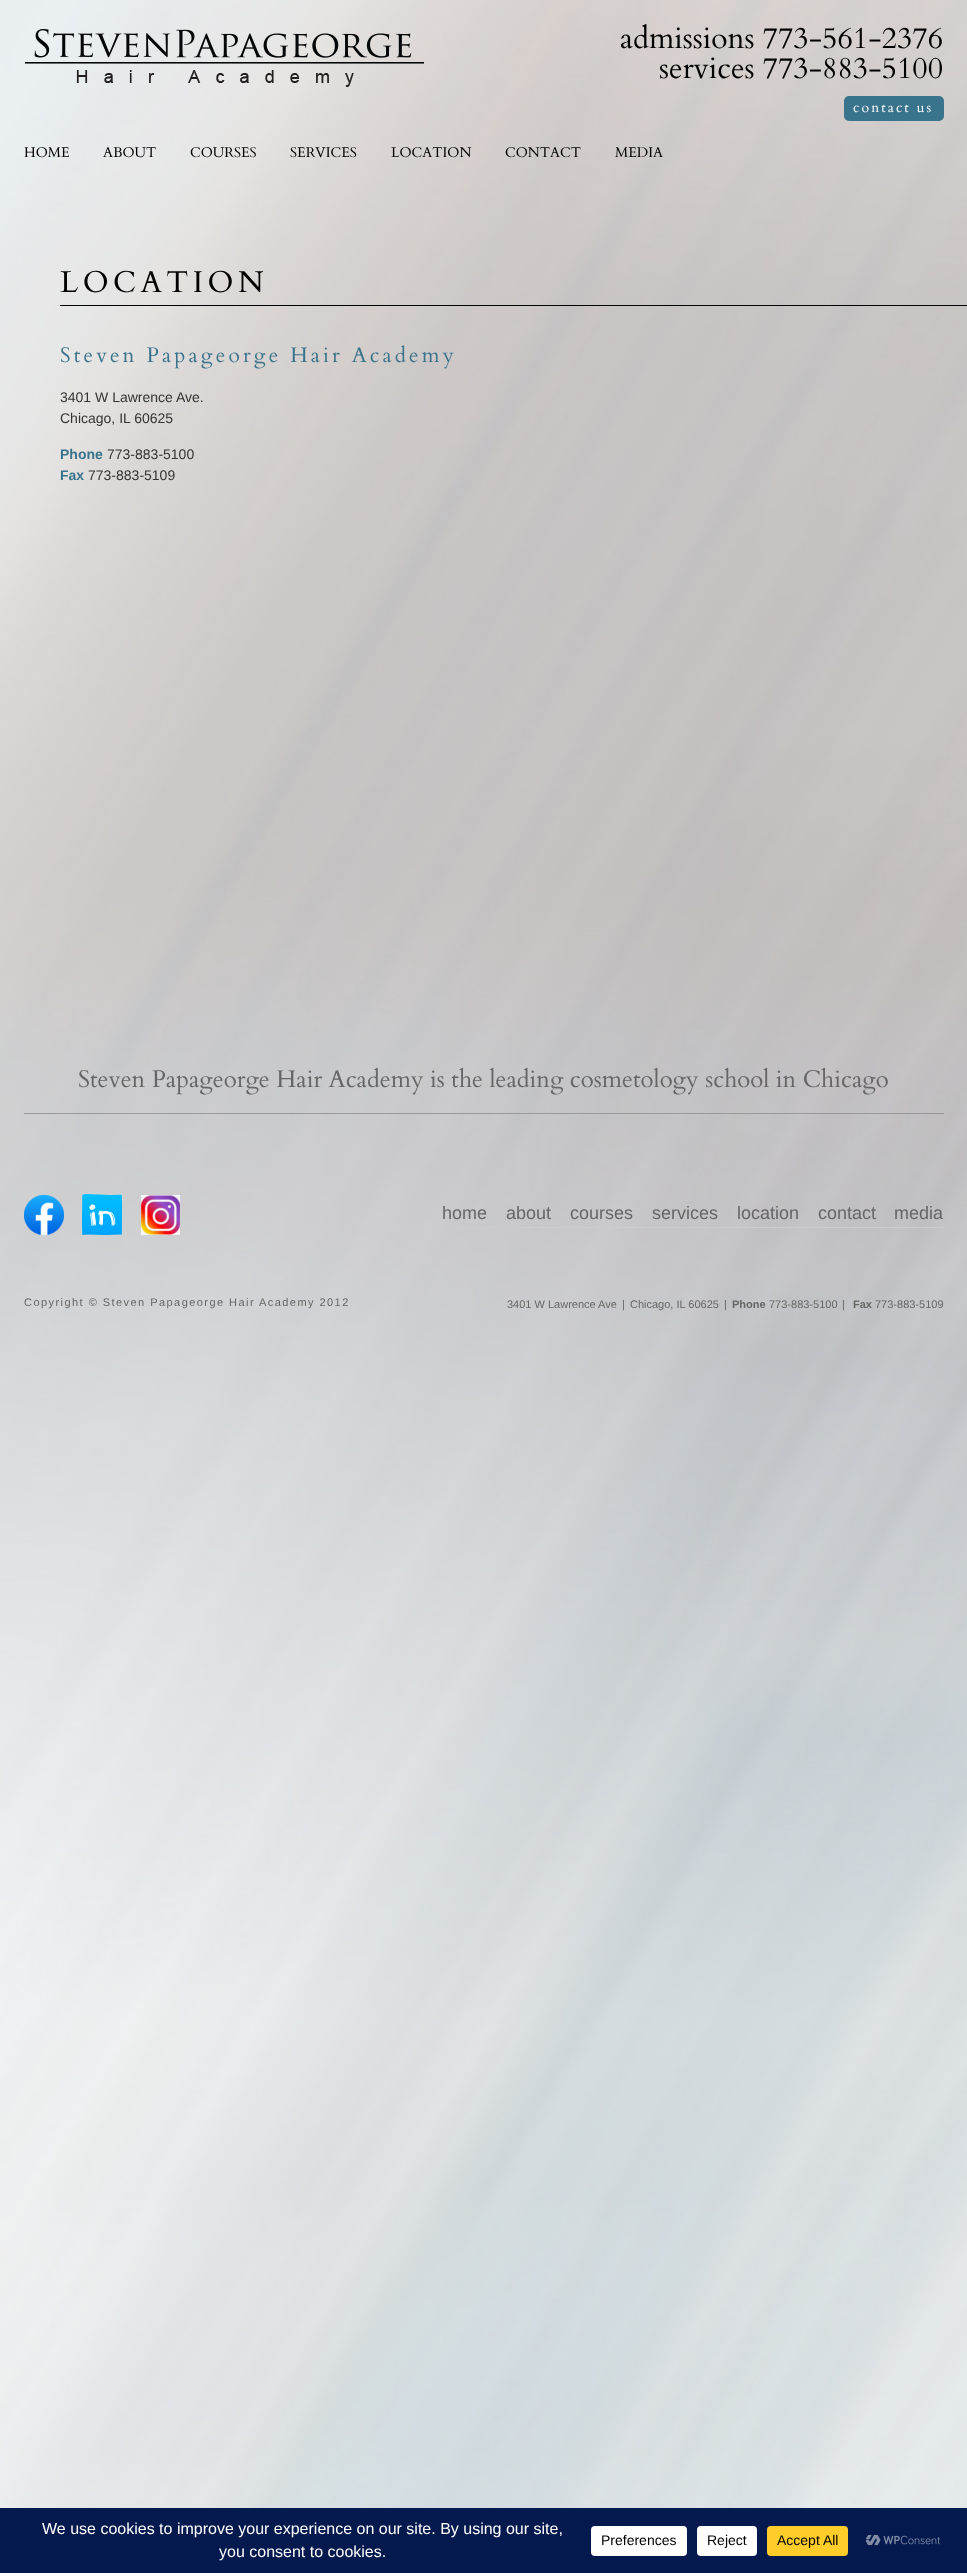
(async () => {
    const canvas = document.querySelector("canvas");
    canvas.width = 967;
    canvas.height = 2573;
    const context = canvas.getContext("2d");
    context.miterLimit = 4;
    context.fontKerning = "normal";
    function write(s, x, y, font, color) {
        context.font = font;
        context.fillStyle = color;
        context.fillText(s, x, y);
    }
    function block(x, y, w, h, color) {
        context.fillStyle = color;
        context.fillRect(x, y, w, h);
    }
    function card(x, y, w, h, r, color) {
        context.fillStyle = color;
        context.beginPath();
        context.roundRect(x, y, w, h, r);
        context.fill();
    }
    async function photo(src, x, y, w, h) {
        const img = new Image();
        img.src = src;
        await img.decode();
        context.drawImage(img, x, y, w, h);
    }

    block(0, 0, 967, 2573, "rgb(255, 255, 255)");
    await photo("media/1.png", 0, 0, 967, 2508);
    await photo("media/2.png", 25, 29, 399, 58);
    write("admissions 773-561-2376", 620, 48, "30px Cardo", "rgb(0, 0, 0)");
    write("services 773-883-5100", 659, 78, "30px Cardo", "rgb(0, 0, 0)");
    card(844, 96, 100, 25, 5, "rgb(57, 115, 140)");
    context.letterSpacing = "2.1px";
    write("contact us", 853, 112, "14px Cardo", "rgb(255, 255, 255)");
    context.letterSpacing = "0px";
    write("HOME", 24, 157, "14px Cardo", "rgb(0, 0, 0)");
    write("ABOUT", 103, 157, "14px Cardo", "rgb(0, 0, 0)");
    write("COURSES", 190, 157, "14px Cardo", "rgb(0, 0, 0)");
    write("SERVICES", 290, 157, "14px Cardo", "rgb(0, 0, 0)");
    write("LOCATION", 391, 157, "14px Cardo", "rgb(0, 0, 0)");
    write("CONTACT", 505, 157, "14px Cardo", "rgb(0, 0, 0)");
    write("MEDIA", 615, 157, "14px Cardo", "rgb(0, 0, 0)");
    block(60, 305, 907, 1, "rgb(0, 0, 0)");
    context.letterSpacing = "4.5px";
    write("LOCATION", 60, 292, "30px Cardo", "rgb(0, 0, 0)");
    context.letterSpacing = "3.15px";
    write("Steven Papageorge Hair Academy", 60, 362, "21px Cardo", "rgb(57, 115, 140)");
    context.letterSpacing = "0px";
    write("3401 W Lawrence Ave.", 60, 402, "14px Liberation Sans", "rgb(51, 51, 51)");
    write("Chicago, IL 60625", 60, 423, "14px Liberation Sans", "rgb(51, 51, 51)");
    write("Phone", 60, 459, "bold 14px Liberation Sans", "rgb(57, 115, 140)");
    write("773-883-5100", 107, 459, "14px Liberation Sans", "rgb(51, 51, 51)");
    write("Fax", 60, 480, "bold 14px Liberation Sans", "rgb(57, 115, 140)");
    write("773-883-5109", 88, 480, "14px Liberation Sans", "rgb(51, 51, 51)");
    block(24, 1113, 920, 1, "rgb(153, 153, 153)");
    write("Steven Papageorge Hair Academy is the leading cosmetology school in Chicago", 78, 1087, "24px Cardo", "rgb(102, 102, 102)");
    await photo("media/3.png", 24, 1195, 40, 40);
    await photo("media/4.png", 82, 1194, 40, 41);
    await photo("media/5.png", 141, 1195, 39, 40);
    context.letterSpacing = "1.45px";
    write("Copyright © Steven Papageorge Hair Academy 2012", 24, 1306, "11px Liberation Sans", "rgb(102, 102, 102)");
    block(454, 1227, 490, 1, "rgb(204, 204, 204)");
    context.letterSpacing = "0px";
    write("home", 442, 1219, "18px Liberation Sans", "rgb(102, 102, 102)");
    write("about", 506, 1219, "18px Liberation Sans", "rgb(102, 102, 102)");
    write("courses", 570, 1219, "18px Liberation Sans", "rgb(102, 102, 102)");
    write("services", 652, 1219, "18px Liberation Sans", "rgb(102, 102, 102)");
    write("location", 737, 1219, "18px Liberation Sans", "rgb(102, 102, 102)");
    write("contact", 818, 1219, "18px Liberation Sans", "rgb(102, 102, 102)");
    write("media", 894, 1219, "18px Liberation Sans", "rgb(102, 102, 102)");
    write("3401 W Lawrence Ave", 507, 1308, "11px Liberation Sans", "rgb(102, 102, 102)");
    write("|", 622, 1308, "11px Liberation Sans", "rgb(102, 102, 102)");
    write("Chicago, IL 60625", 630, 1308, "11px Liberation Sans", "rgb(102, 102, 102)");
    write("|", 724, 1308, "11px Liberation Sans", "rgb(102, 102, 102)");
    write("Phone", 732, 1308, "bold 11px Liberation Sans", "rgb(102, 102, 102)");
    write("773-883-5100", 769, 1308, "11px Liberation Sans", "rgb(102, 102, 102)");
    write("|", 842, 1308, "11px Liberation Sans", "rgb(102, 102, 102)");
    write("Fax", 853, 1308, "bold 11px Liberation Sans", "rgb(102, 102, 102)");
    write("773-883-5109", 875, 1308, "11px Liberation Sans", "rgb(102, 102, 102)");
    block(0, 2508, 967, 65, "rgb(4, 25, 78)");
    write("We use cookies to improve your experience on our site. By using our site,", 42, 2534, "16px Liberation Sans", "rgb(255, 255, 255)");
    write("you consent to cookies.", 219, 2557, "16px Liberation Sans", "rgb(255, 255, 255)");
    card(591, 2526, 96, 30, 4, "rgb(255, 255, 255)");
    write("Preferences", 601, 2545, "14px Liberation Sans", "rgb(0, 0, 0)");
    card(697, 2526, 60, 30, 4, "rgb(255, 255, 255)");
    write("Reject", 707, 2545, "14px Liberation Sans", "rgb(0, 0, 0)");
    card(767, 2526, 81, 30, 4, "rgb(255, 205, 42)");
    write("Accept All", 777, 2545, "14px Liberation Sans", "rgb(0, 0, 0)");
    await photo("media/6.png", 865, 2535, 75, 11);
})();
